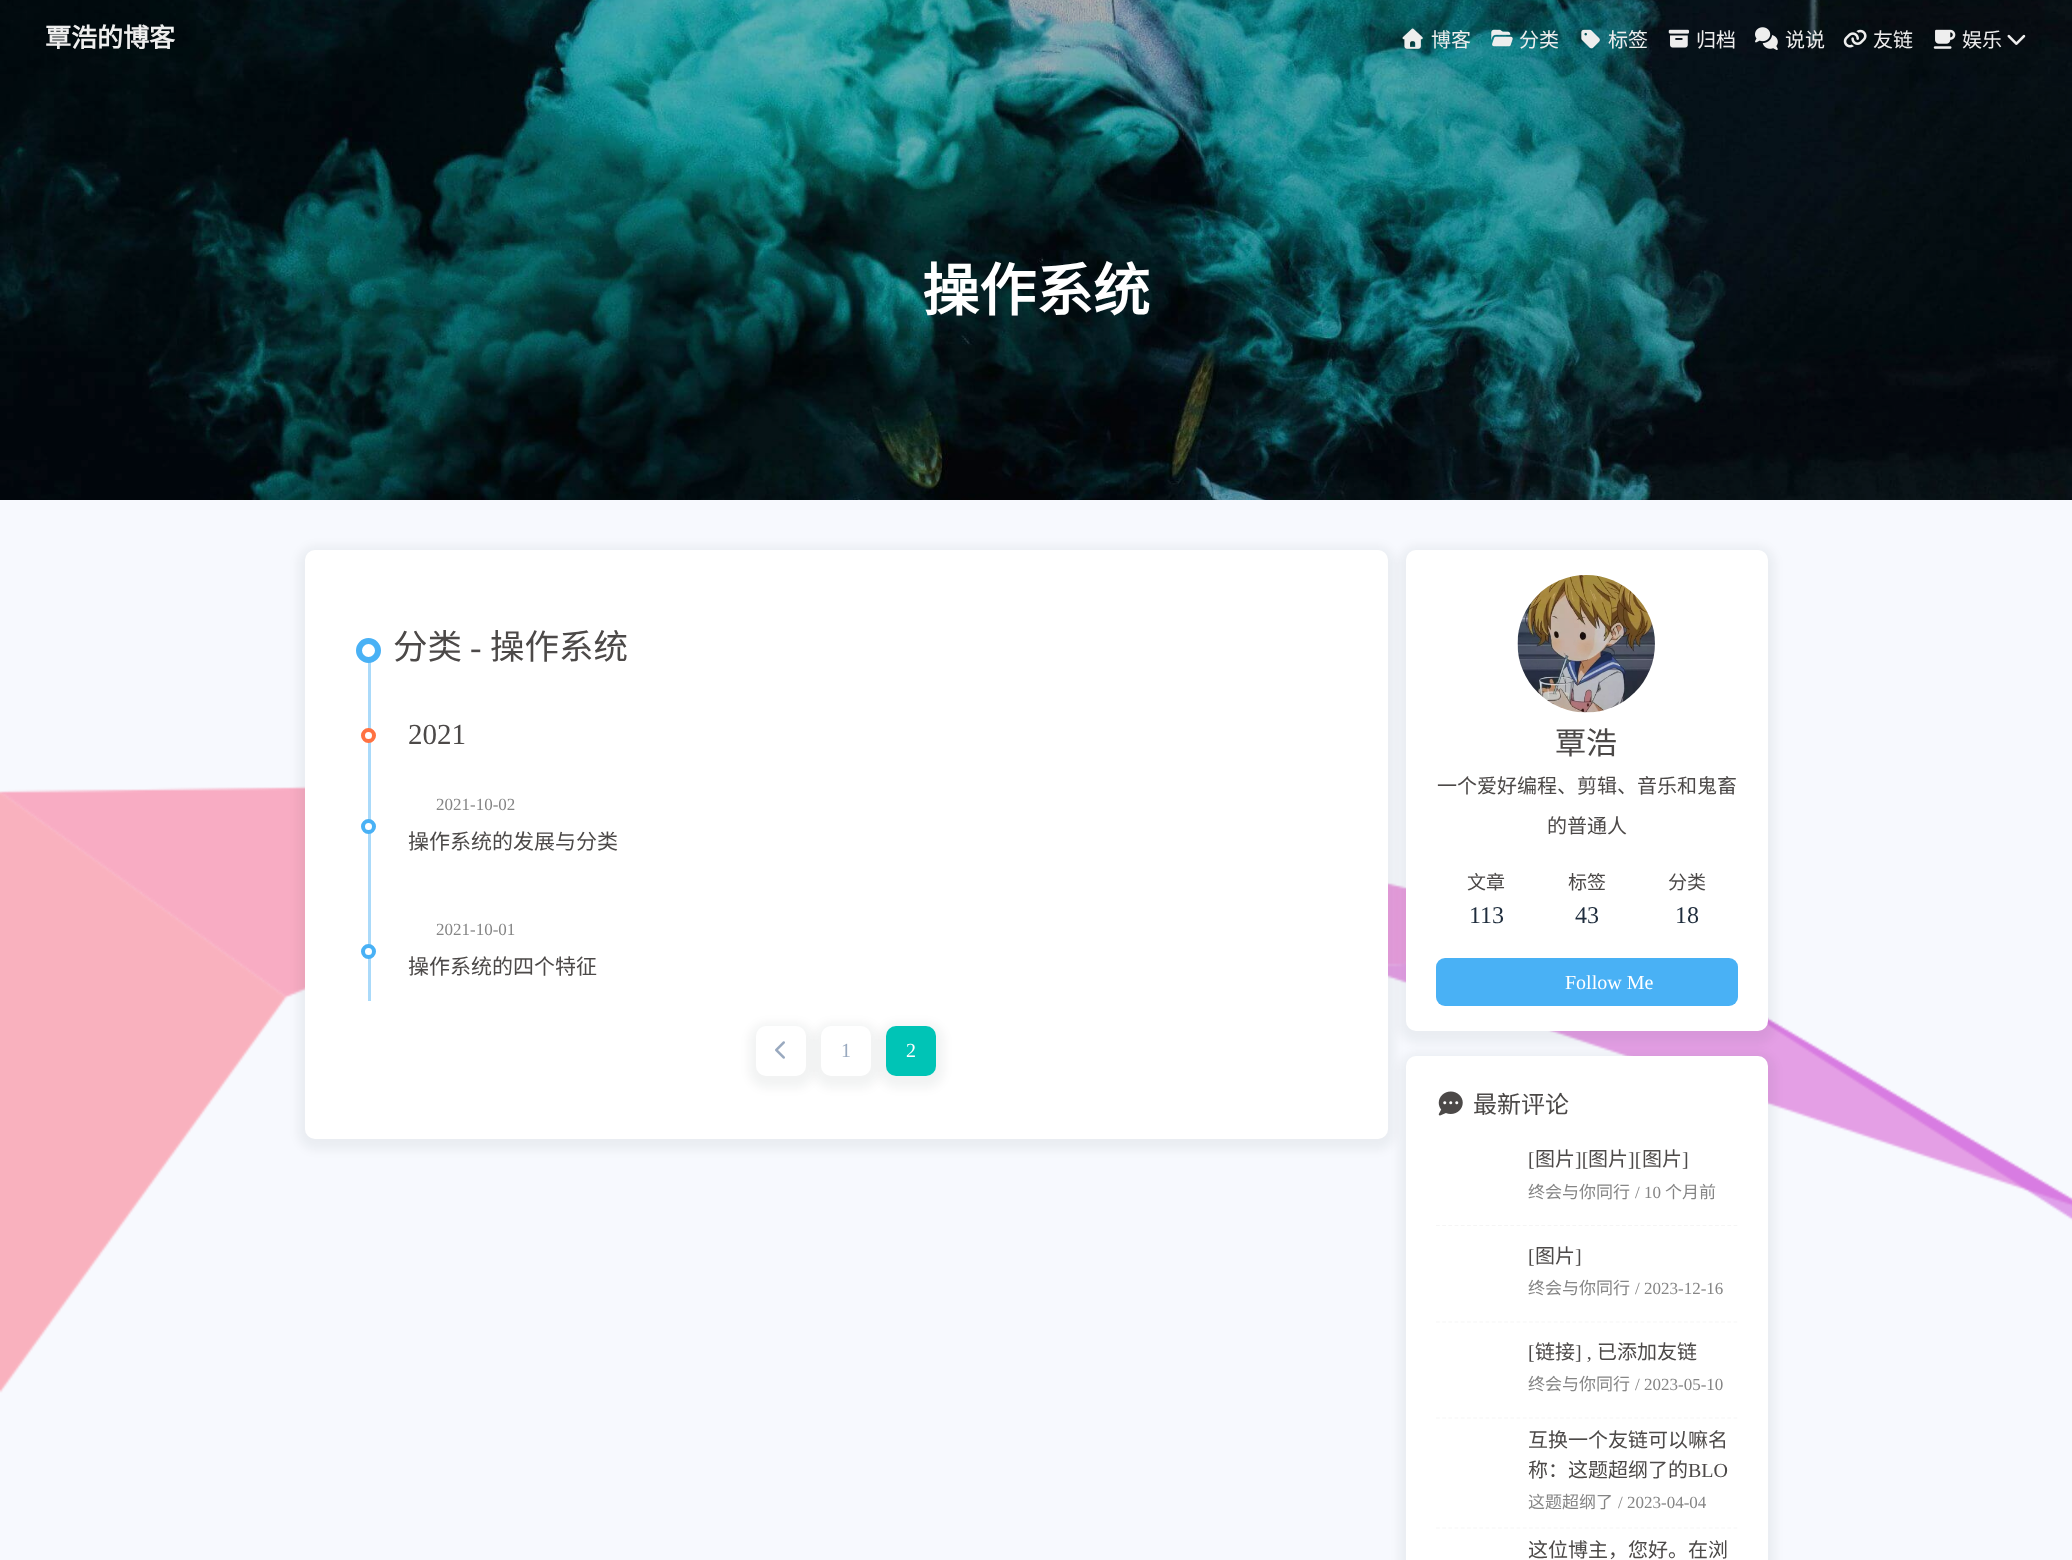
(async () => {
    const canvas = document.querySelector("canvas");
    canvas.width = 2072;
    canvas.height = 1560;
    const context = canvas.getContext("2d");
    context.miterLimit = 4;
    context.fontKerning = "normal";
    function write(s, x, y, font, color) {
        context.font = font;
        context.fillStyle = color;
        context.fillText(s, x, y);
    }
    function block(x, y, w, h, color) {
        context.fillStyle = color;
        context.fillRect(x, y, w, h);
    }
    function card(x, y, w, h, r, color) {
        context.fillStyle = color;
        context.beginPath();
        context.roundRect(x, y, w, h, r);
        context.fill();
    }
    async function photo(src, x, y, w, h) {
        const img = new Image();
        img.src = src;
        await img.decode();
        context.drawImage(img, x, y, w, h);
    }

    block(0, 0, 2072, 1560, "rgb(247, 249, 254)");
    await photo("media/1.png", 0, 0, 2072, 500);
    write("覃浩的博客", 45, 47, "bold 26px Noto Sans CJK SC", "rgb(238, 238, 238)");
    await photo("media/2.png", 1402, 28, 21, 21);
    write("博客", 1431, 47, "20px Noto Sans CJK SC", "rgb(238, 238, 238)");
    await photo("media/3.png", 1491, 29, 22, 18);
    write("分类", 1519, 47, "20px Noto Sans CJK SC", "rgb(238, 238, 238)");
    await photo("media/4.png", 1581, 29, 19, 20);
    write("标签", 1608, 47, "20px Noto Sans CJK SC", "rgb(238, 238, 238)");
    await photo("media/5.png", 1668, 29, 22, 19);
    write("归档", 1696, 47, "20px Noto Sans CJK SC", "rgb(238, 238, 238)");
    await photo("media/6.png", 1755, 27, 23, 23);
    write("说说", 1785, 47, "20px Noto Sans CJK SC", "rgb(238, 238, 238)");
    await photo("media/7.png", 1843, 29, 24, 19);
    write("友链", 1873, 47, "20px Noto Sans CJK SC", "rgb(238, 238, 238)");
    await photo("media/8.png", 1933, 29, 23, 20);
    write("娱乐", 1962, 47, "20px Noto Sans CJK SC", "rgb(238, 238, 238)");
    await photo("media/9.png", 2007, 34, 19, 11);
    write("操作系统", 922, 311, "bold 57px Noto Sans CJK SC", "rgb(255, 255, 255)");
    await photo("media/13.png", 0, 786, 2072, 607);
    context.fillStyle = "rgba(7, 17, 27, 0.05)";
    context.filter = "blur(5px)";
    context.beginPath();
    context.roundRect(298, 546, 1097, 604, 18);
    context.fill();
    context.filter = "none";
    card(305, 550, 1083, 589, 10, "rgb(255, 255, 255)");
    block(368, 655, 3, 346, "rgb(170, 218, 250)");
    context.fillStyle = "rgb(255, 255, 255)";
    context.beginPath();
    context.arc(368.5, 650.5, 9.5, 0, Math.PI * 2);
    context.fill();
    context.strokeStyle = "rgb(73, 177, 245)";
    context.lineWidth = 6;
    context.stroke();
    write("分类", 393, 659, "34.5px Noto Sans CJK SC", "rgb(76, 73, 72)");
    write("-", 470, 659, "34.5px Liberation Serif", "rgb(76, 73, 72)");
    write("操作系统", 490, 659, "34.5px Noto Sans CJK SC", "rgb(76, 73, 72)");
    context.fillStyle = "rgb(255, 255, 255)";
    context.beginPath();
    context.arc(368.5, 735.5, 5.5, 0, Math.PI * 2);
    context.fill();
    context.strokeStyle = "rgb(255, 114, 66)";
    context.lineWidth = 4;
    context.stroke();
    write("2021", 408, 744, "29px Liberation Serif", "rgb(76, 73, 72)");
    context.fillStyle = "rgb(255, 255, 255)";
    context.beginPath();
    context.arc(368.5, 826.5, 5.5, 0, Math.PI * 2);
    context.fill();
    context.strokeStyle = "rgb(73, 177, 245)";
    context.stroke();
    write("2021-10-02", 436, 810, "17px Liberation Serif", "rgb(133, 133, 133)");
    write("操作系统的发展与分类", 408, 849, "21px Noto Sans CJK SC", "rgb(76, 73, 72)");
    context.fillStyle = "rgb(255, 255, 255)";
    context.beginPath();
    context.arc(368.5, 951.5, 5.5, 0, Math.PI * 2);
    context.fill();
    context.stroke();
    write("2021-10-01", 436, 935, "17px Liberation Serif", "rgb(133, 133, 133)");
    write("操作系统的四个特征", 408, 974, "21px Noto Sans CJK SC", "rgb(76, 73, 72)");
    context.fillStyle = "rgba(7, 17, 27, 0.05)";
    context.filter = "blur(5px)";
    context.beginPath();
    context.roundRect(749, 1023, 65, 65, 18);
    context.fill();
    context.filter = "none";
    card(756, 1026, 50, 50, 10, "rgb(255, 255, 255)");
    await photo("media/10.png", 775, 1041, 10, 18);
    context.fillStyle = "rgba(7, 17, 27, 0.05)";
    context.filter = "blur(5px)";
    context.beginPath();
    context.roundRect(814, 1023, 65, 65, 18);
    context.fill();
    context.filter = "none";
    card(821, 1026, 50, 50, 10, "rgb(255, 255, 255)");
    write("1", 841, 1057, "20px Liberation Serif", "rgb(153, 169, 191)");
    context.fillStyle = "rgba(7, 17, 27, 0.05)";
    context.filter = "blur(5px)";
    context.beginPath();
    context.roundRect(879, 1023, 65, 65, 18);
    context.fill();
    context.filter = "none";
    card(886, 1026, 50, 50, 10, "rgb(0, 196, 182)");
    write("2", 906, 1057, "20px Liberation Serif", "rgb(255, 255, 255)");
    context.fillStyle = "rgba(7, 17, 27, 0.05)";
    context.filter = "blur(5px)";
    context.beginPath();
    context.roundRect(1399, 546, 376, 497, 18);
    context.fill();
    context.filter = "none";
    card(1406, 550, 362, 481, 10, "rgb(255, 255, 255)");
    await photo("media/11.png", 1517, 575, 138, 138);
    write("覃浩", 1555, 754, "31px Noto Sans CJK SC", "rgb(76, 73, 72)");
    write("一个爱好编程、剪辑、音乐和鬼畜", 1437, 793, "20px Noto Sans CJK SC", "rgb(76, 73, 72)");
    write("的普通人", 1547, 833, "20px Noto Sans CJK SC", "rgb(76, 73, 72)");
    write("文章", 1467, 889, "19px Noto Sans CJK SC", "rgb(76, 73, 72)");
    write("113", 1469, 923, "24px Liberation Serif", "rgb(31, 45, 61)");
    write("标签", 1568, 889, "19px Noto Sans CJK SC", "rgb(76, 73, 72)");
    write("43", 1575, 923, "24px Liberation Serif", "rgb(31, 45, 61)");
    write("分类", 1668, 889, "19px Noto Sans CJK SC", "rgb(76, 73, 72)");
    write("18", 1675, 923, "24px Liberation Serif", "rgb(31, 45, 61)");
    card(1436, 958, 302, 48, 9, "rgb(73, 177, 245)");
    write("Follow Me", 1565, 989, "20px Liberation Serif", "rgb(255, 255, 255)");
    context.fillStyle = "rgba(7, 17, 27, 0.05)";
    context.filter = "blur(5px)";
    context.beginPath();
    context.roundRect(1399, 1053, 376, 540, 18);
    context.fill();
    context.filter = "none";
    card(1406, 1056, 362, 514, 10, "rgb(255, 255, 255)");
    await photo("media/12.png", 1438, 1091, 25, 25);
    write("最新评论", 1473, 1113, "24px Noto Sans CJK SC", "rgb(76, 73, 72)");
    context.beginPath();
    context.moveTo(1436, 1225.5);
    context.lineTo(1737.5, 1225.5);
    context.strokeStyle = "rgb(245, 245, 245)";
    context.lineWidth = 1.2;
    context.setLineDash([3.75, 2.45]);
    context.stroke();
    write("[", 1528, 1166, "20px Liberation Serif", "rgb(76, 73, 72)");
    write("图片", 1535, 1166, "20px Noto Sans CJK SC", "rgb(76, 73, 72)");
    write("][", 1575, 1166, "20px Liberation Serif", "rgb(76, 73, 72)");
    write("图片", 1588, 1166, "20px Noto Sans CJK SC", "rgb(76, 73, 72)");
    write("][", 1628, 1166, "20px Liberation Serif", "rgb(76, 73, 72)");
    write("图片", 1642, 1166, "20px Noto Sans CJK SC", "rgb(76, 73, 72)");
    write("]", 1682, 1166, "20px Liberation Serif", "rgb(76, 73, 72)");
    write("终会与你同行", 1528, 1198, "17px Noto Sans CJK SC", "rgb(133, 133, 133)");
    write("/ 10", 1635, 1198, "17px Liberation Serif", "rgb(133, 133, 133)");
    write("个月前", 1665, 1198, "17px Noto Sans CJK SC", "rgb(133, 133, 133)");
    context.beginPath();
    context.moveTo(1436, 1322);
    context.lineTo(1737.5, 1322);
    context.stroke();
    write("[", 1528, 1263, "20px Liberation Serif", "rgb(76, 73, 72)");
    write("图片", 1535, 1263, "20px Noto Sans CJK SC", "rgb(76, 73, 72)");
    write("]", 1575, 1263, "20px Liberation Serif", "rgb(76, 73, 72)");
    write("终会与你同行", 1528, 1294, "17px Noto Sans CJK SC", "rgb(133, 133, 133)");
    write("/ 2023-12-16", 1635, 1294, "17px Liberation Serif", "rgb(133, 133, 133)");
    context.beginPath();
    context.moveTo(1436, 1418);
    context.lineTo(1737.5, 1418);
    context.stroke();
    write("[", 1528, 1359, "20px Liberation Serif", "rgb(76, 73, 72)");
    write("链接", 1535, 1359, "20px Noto Sans CJK SC", "rgb(76, 73, 72)");
    write("] ,", 1575, 1359, "20px Liberation Serif", "rgb(76, 73, 72)");
    write("已添加友链", 1597, 1359, "20px Noto Sans CJK SC", "rgb(76, 73, 72)");
    write("终会与你同行", 1528, 1390, "17px Noto Sans CJK SC", "rgb(133, 133, 133)");
    write("/ 2023-05-10", 1635, 1390, "17px Liberation Serif", "rgb(133, 133, 133)");
    context.beginPath();
    context.moveTo(1436, 1528);
    context.lineTo(1737.5, 1528);
    context.stroke();
    write("互换一个友链可以嘛名", 1528, 1447, "20px Noto Sans CJK SC", "rgb(76, 73, 72)");
    write("称：这题超纲了的", 1528, 1477, "20px Noto Sans CJK SC", "rgb(76, 73, 72)");
    write("BLO", 1688, 1477, "20px Liberation Serif", "rgb(76, 73, 72)");
    write("这题超纲了", 1528, 1508, "17px Noto Sans CJK SC", "rgb(133, 133, 133)");
    write("/ 2023-04-04", 1618, 1508, "17px Liberation Serif", "rgb(133, 133, 133)");
    write("这位博主，您好。在浏", 1528, 1557, "20px Noto Sans CJK SC", "rgb(76, 73, 72)");
})();
